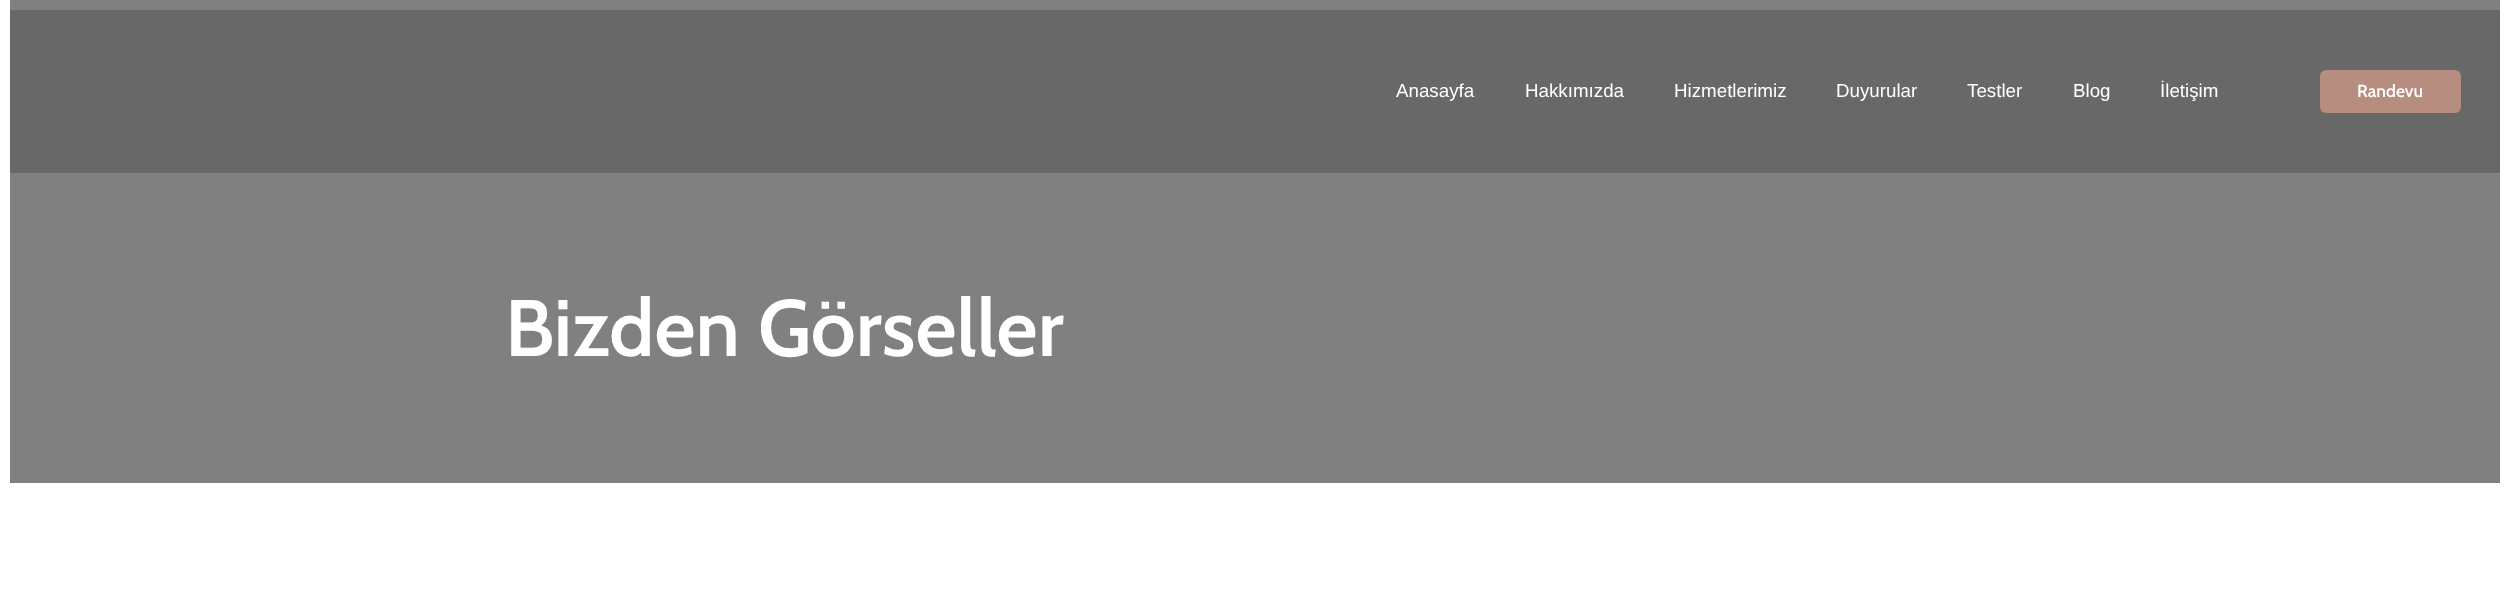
(async () => {
    const canvas = document.querySelector("canvas");
    canvas.width = 2509;
    canvas.height = 597;
    const context = canvas.getContext("2d");
    context.miterLimit = 4;
    context.fontKerning = "normal";
    function write(s, x, y, font, color) {
        context.font = font;
        context.fillStyle = color;
        context.fillText(s, x, y);
    }
    function block(x, y, w, h, color) {
        context.fillStyle = color;
        context.fillRect(x, y, w, h);
    }
    function card(x, y, w, h, r, color) {
        context.fillStyle = color;
        context.beginPath();
        context.roundRect(x, y, w, h, r);
        context.fill();
    }

    block(0, 0, 2509, 597, "rgb(255, 255, 255)");
    block(10, 0, 2490, 483, "rgb(128, 128, 128)");
    block(10, 10, 2490, 163, "rgb(104, 104, 104)");
    block(10, 173, 2490, 1, "rgb(133, 133, 133)");
    write("Anasayfa", 1396, 97, "18.75px Liberation Sans", "rgb(255, 255, 255)");
    write("Hakkımızda", 1525, 97, "18.75px Liberation Sans", "rgb(255, 255, 255)");
    write("Hizmetlerimiz", 1674, 97, "18.75px Liberation Sans", "rgb(255, 255, 255)");
    write("Duyurular", 1836, 97, "18.75px Liberation Sans", "rgb(255, 255, 255)");
    write("Testler", 1967, 97, "18.75px Liberation Sans", "rgb(255, 255, 255)");
    write("Blog", 2073, 97, "18.75px Liberation Sans", "rgb(255, 255, 255)");
    write("İletişim", 2160, 97, "18.75px Liberation Sans", "rgb(255, 255, 255)");
    card(2320, 70, 141, 43, 6, "rgb(182, 141, 126)");
    write("Randevu", 2357, 97, "600 17.5px Cabin", "rgb(255, 255, 255)");
    write("Bizden Görseller", 505, 356, "600 80px Cabin", "rgb(255, 255, 255)");
})();
